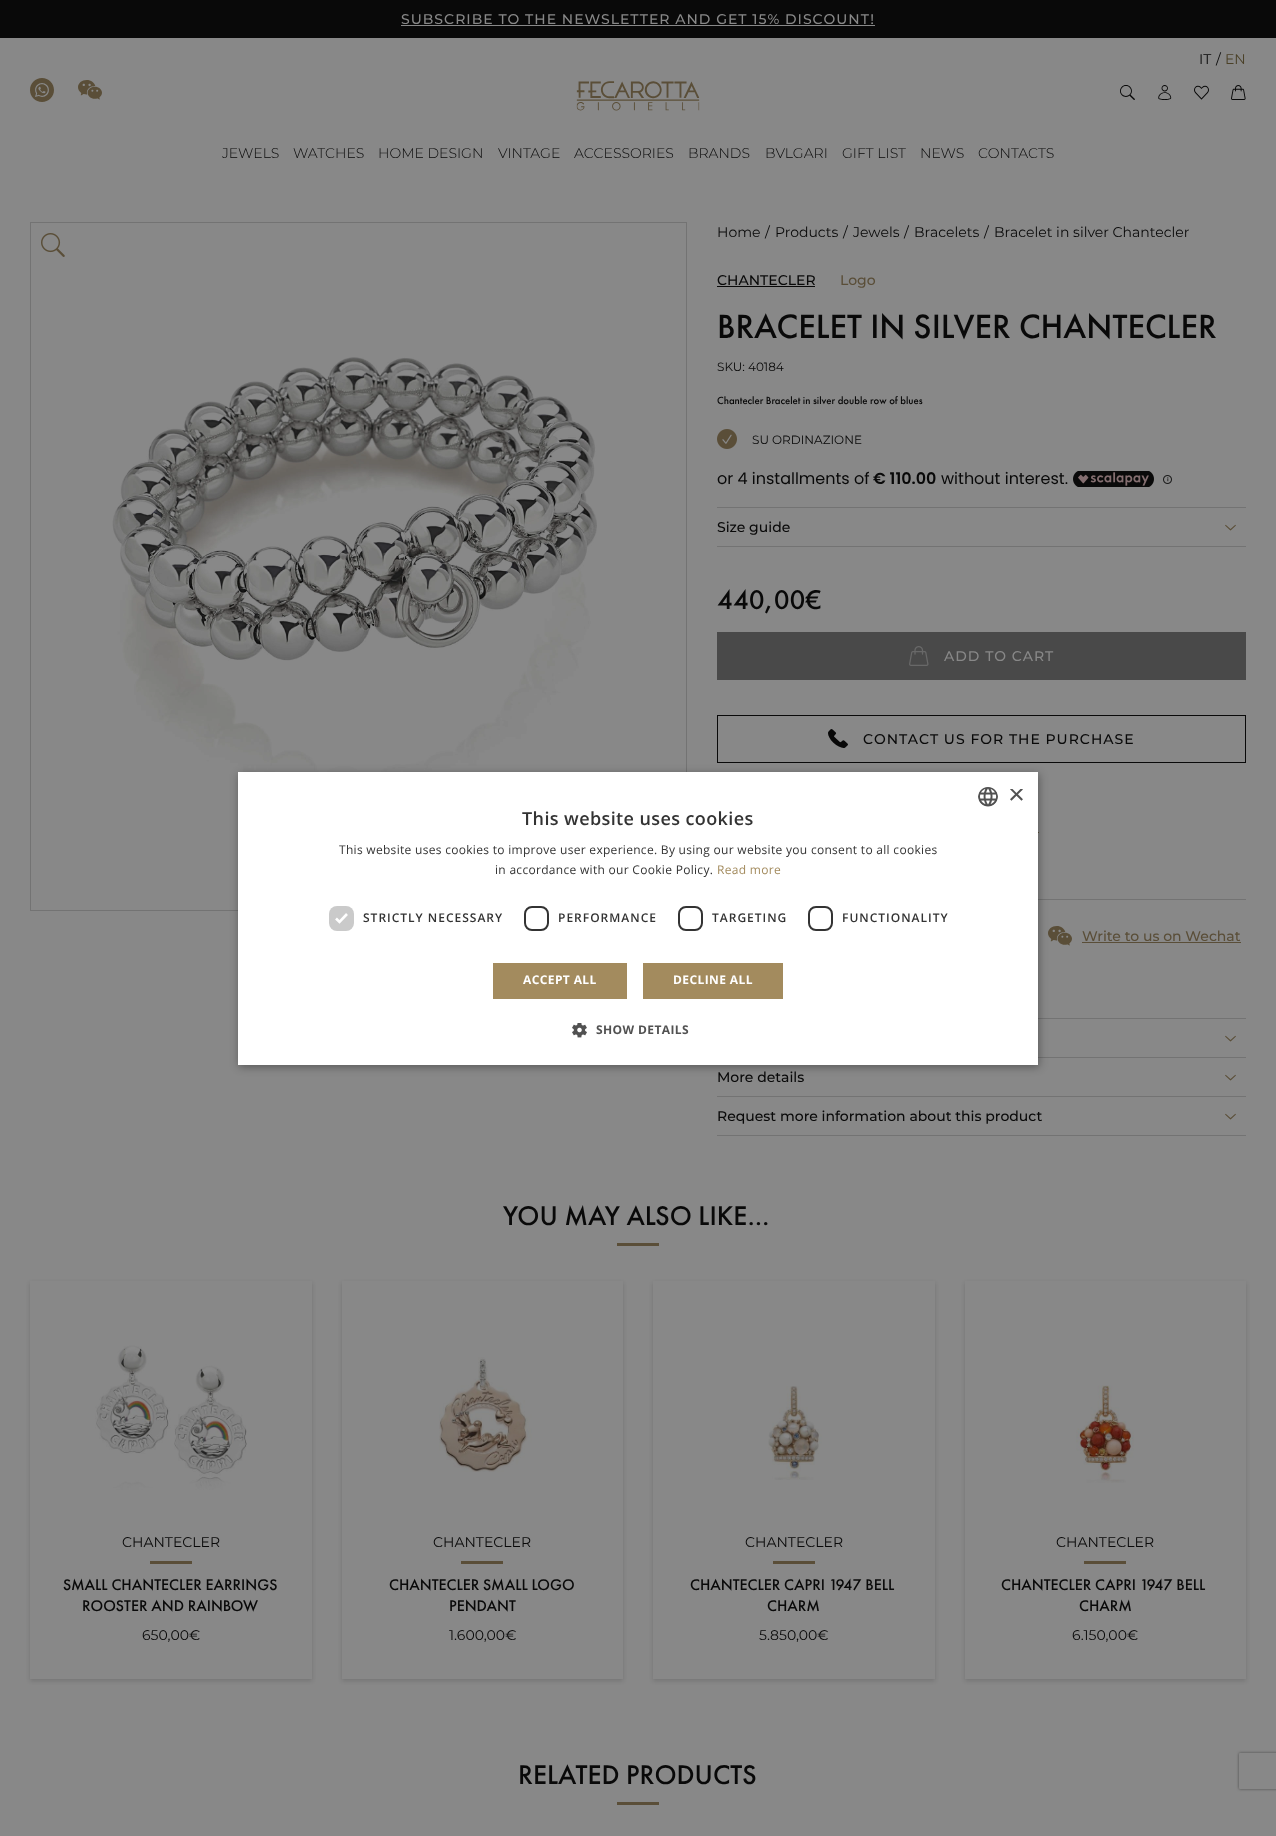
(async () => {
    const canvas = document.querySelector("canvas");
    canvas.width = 1276;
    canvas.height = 1836;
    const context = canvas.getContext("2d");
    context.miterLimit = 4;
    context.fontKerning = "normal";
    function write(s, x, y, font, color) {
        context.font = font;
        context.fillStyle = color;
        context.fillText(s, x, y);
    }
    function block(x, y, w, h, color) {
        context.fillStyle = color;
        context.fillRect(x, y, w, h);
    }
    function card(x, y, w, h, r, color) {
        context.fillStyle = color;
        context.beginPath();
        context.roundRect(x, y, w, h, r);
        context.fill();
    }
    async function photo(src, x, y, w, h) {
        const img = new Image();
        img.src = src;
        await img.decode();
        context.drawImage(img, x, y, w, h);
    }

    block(0, 0, 1276, 1836, "rgb(136, 136, 136)");
    block(0, 0, 1276, 38, "rgb(9, 9, 9)");
    context.letterSpacing = "1px";
    write("SUBSCRIBE TO THE NEWSLETTER AND GET 15% DISCOUNT!", 401, 24, "500 14px Montserrat", "rgb(136, 136, 136)");
    block(401, 25, 474, 1, "rgb(136, 136, 136)");
    context.letterSpacing = "0px";
    write("IT", 1199, 64, "14px Montserrat", "rgb(9, 9, 9)");
    write("/", 1216, 64, "14px Montserrat", "rgb(9, 9, 9)");
    write("EN", 1225, 64, "14px Montserrat", "rgb(75, 65, 40)");
    await photo("media/1.png", 30, 78, 24, 24);
    await photo("media/2.png", 78, 80, 24, 20);
    await photo("media/3.png", 576, 81, 124, 30);
    await photo("media/4.png", 1120, 85, 15, 15);
    await photo("media/5.png", 1158, 85, 14, 15);
    await photo("media/6.png", 1194, 85, 15, 15);
    await photo("media/7.png", 1231, 85, 15, 15);
    write("JEWELS", 222, 158, "300 14px Montserrat", "rgb(9, 9, 9)");
    write("WATCHES", 293, 158, "300 14px Montserrat", "rgb(9, 9, 9)");
    write("HOME DESIGN", 378, 158, "300 14px Montserrat", "rgb(9, 9, 9)");
    write("VINTAGE", 498, 158, "300 14px Montserrat", "rgb(9, 9, 9)");
    write("ACCESSORIES", 574, 158, "300 14px Montserrat", "rgb(9, 9, 9)");
    write("BRANDS", 688, 158, "300 14px Montserrat", "rgb(9, 9, 9)");
    write("BVLGARI", 765, 158, "300 14px Montserrat", "rgb(9, 9, 9)");
    write("GIFT LIST", 842, 158, "300 14px Montserrat", "rgb(9, 9, 9)");
    write("NEWS", 920, 158, "300 14px Montserrat", "rgb(9, 9, 9)");
    write("CONTACTS", 978, 158, "300 14px Montserrat", "rgb(9, 9, 9)");
    context.strokeStyle = "rgb(115, 115, 115)";
    context.strokeRect(30.5, 222.5, 656, 688);
    await photo("media/8.png", 41, 233, 24, 24);
    await photo("media/9.png", 112, 357, 485, 419);
    write("Home", 717, 237, "14px Montserrat", "rgb(9, 9, 9)");
    write("/", 765, 237, "14px Montserrat", "rgb(9, 9, 9)");
    write("Products", 775, 237, "14px Montserrat", "rgb(9, 9, 9)");
    write("/", 843, 237, "14px Montserrat", "rgb(9, 9, 9)");
    write("Jewels", 853, 237, "14px Montserrat", "rgb(9, 9, 9)");
    write("/", 904, 237, "14px Montserrat", "rgb(9, 9, 9)");
    write("Bracelets", 914, 237, "14px Montserrat", "rgb(9, 9, 9)");
    write("/", 984, 237, "14px Montserrat", "rgb(9, 9, 9)");
    write("Bracelet in silver Chantecler", 994, 237, "14px Montserrat", "rgb(9, 9, 9)");
    write("CHANTECLER", 717, 285, "500 14px Montserrat", "rgb(9, 9, 9)");
    block(717, 286, 98, 1, "rgb(9, 9, 9)");
    write("Logo", 840, 285, "500 14px Montserrat", "rgb(90, 78, 56)");
    write("BRACELET IN SILVER CHANTECLER", 717, 338, "500 35px Futura PT", "rgb(9, 9, 9)");
    write("SKU: 40184", 717, 371, "12px Montserrat", "rgb(9, 9, 9)");
    write("Chantecler Bracelet in silver double row of blues", 717, 404, "500 10.75px Futura PT", "rgb(9, 9, 9)");
    await photo("media/10.png", 717, 429, 20, 20);
    write("SU ORDINAZIONE", 752, 444, "12px Montserrat", "rgb(9, 9, 9)");
    write("or 4 installments of", 717, 484, "16px Poppins", "rgb(9, 9, 9)");
    write("€ 110.00", 873, 484, "600 16px Poppins", "rgb(9, 9, 9)");
    write("without interest.", 941, 484, "16px Poppins", "rgb(9, 9, 9)");
    await photo("media/11.png", 1073, 471, 81, 16);
    await photo("media/12.png", 1163, 475, 9, 9);
    block(717, 507, 529, 1, "rgb(115, 115, 115)");
    block(717, 546, 529, 1, "rgb(115, 115, 115)");
    write("Size guide", 717, 532, "500 14px Montserrat", "rgb(9, 9, 9)");
    await photo("media/13.png", 1225, 524, 11, 7);
    write("440,00€", 717, 609, "500 28px Futura PT", "rgb(9, 9, 9)");
    block(717, 632, 529, 48, "rgb(73, 73, 73)");
    await photo("media/14.png", 909, 646, 20, 20);
    context.letterSpacing = "1px";
    write("ADD TO CART", 944, 661, "500 14px Montserrat", "rgb(136, 136, 136)");
    context.strokeStyle = "rgb(9, 9, 9)";
    context.strokeRect(717.5, 715.5, 528, 47);
    await photo("media/15.png", 828, 729, 20, 19);
    write("CONTACT US FOR THE PURCHASE", 863, 744, "500 14px Montserrat", "rgb(9, 9, 9)");
    block(1038, 832, 1, 1, "rgb(90, 78, 56)");
    block(1038, 899, 208, 1, "rgb(115, 115, 115)");
    await photo("media/2.png", 1048, 926, 24, 20);
    context.letterSpacing = "0px";
    write("Write to us on Wechat", 1082, 941, "500 14px Montserrat", "rgb(90, 78, 56)");
    block(1082, 942, 159, 1, "rgb(90, 78, 56)");
    block(1038, 1018, 208, 1, "rgb(115, 115, 115)");
    block(1038, 1057, 208, 1, "rgb(115, 115, 115)");
    await photo("media/13.png", 1225, 1035, 11, 7);
    block(717, 1096, 529, 1, "rgb(115, 115, 115)");
    write("More details", 717, 1082, "500 14px Montserrat", "rgb(9, 9, 9)");
    await photo("media/13.png", 1225, 1074, 11, 7);
    block(717, 1135, 529, 1, "rgb(115, 115, 115)");
    write("Request more information about this product", 717, 1121, "500 14px Montserrat", "rgb(9, 9, 9)");
    await photo("media/13.png", 1225, 1113, 11, 7);
    write("YOU MAY ALSO LIKE…", 503, 1225, "500 28px Futura PT", "rgb(9, 9, 9)");
    block(617, 1243, 42, 3, "rgb(90, 78, 56)");
    context.save();
    context.beginPath();
    context.moveTo(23, 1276);
    context.lineTo(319, 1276);
    context.lineTo(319, 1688);
    context.lineTo(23, 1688);
    context.closePath();
    context.moveTo(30, 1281);
    context.lineTo(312, 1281);
    context.lineTo(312, 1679);
    context.lineTo(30, 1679);
    context.closePath();
    context.clip("evenodd");
    context.fillStyle = "rgba(9, 9, 9, 0.15)";
    context.filter = "blur(2px)";
    context.beginPath();
    context.rect(30, 1283, 282, 398);
    context.fill();
    context.filter = "none";
    context.restore();
    await photo("media/16.png", 95, 1345, 152, 145);
    write("CHANTECLER", 122, 1547, "14px Montserrat", "rgb(9, 9, 9)");
    block(150, 1561, 42, 3, "rgb(90, 78, 56)");
    write("SMALL CHANTECLER EARRINGS", 63, 1590, "500 16px Futura PT", "rgb(9, 9, 9)");
    write("ROOSTER AND RAINBOW", 82, 1611, "500 16px Futura PT", "rgb(9, 9, 9)");
    write("650,00€", 142, 1640, "14px Montserrat", "rgb(9, 9, 9)");
    context.save();
    context.beginPath();
    context.moveTo(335, 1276);
    context.lineTo(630, 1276);
    context.lineTo(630, 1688);
    context.lineTo(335, 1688);
    context.closePath();
    context.moveTo(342, 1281);
    context.lineTo(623, 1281);
    context.lineTo(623, 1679);
    context.lineTo(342, 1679);
    context.closePath();
    context.clip("evenodd");
    context.fillStyle = "rgba(9, 9, 9, 0.15)";
    context.filter = "blur(2px)";
    context.beginPath();
    context.rect(342, 1283, 281, 398);
    context.fill();
    context.filter = "none";
    context.restore();
    await photo("media/17.png", 439, 1357, 93, 115);
    write("CHANTECLER", 433, 1547, "14px Montserrat", "rgb(9, 9, 9)");
    block(461, 1561, 42, 3, "rgb(90, 78, 56)");
    write("CHANTECLER SMALL LOGO", 389, 1590, "500 16px Futura PT", "rgb(9, 9, 9)");
    write("PENDANT", 449, 1611, "500 16px Futura PT", "rgb(9, 9, 9)");
    write("1.600,00€", 449, 1640, "14px Montserrat", "rgb(9, 9, 9)");
    context.save();
    context.beginPath();
    context.moveTo(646, 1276);
    context.lineTo(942, 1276);
    context.lineTo(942, 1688);
    context.lineTo(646, 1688);
    context.closePath();
    context.moveTo(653, 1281);
    context.lineTo(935, 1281);
    context.lineTo(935, 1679);
    context.lineTo(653, 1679);
    context.closePath();
    context.clip("evenodd");
    context.fillStyle = "rgba(9, 9, 9, 0.15)";
    context.filter = "blur(2px)";
    context.beginPath();
    context.rect(653, 1283, 282, 398);
    context.fill();
    context.filter = "none";
    context.restore();
    await photo("media/18.png", 768, 1386, 54, 94);
    write("CHANTECLER", 745, 1547, "14px Montserrat", "rgb(9, 9, 9)");
    block(773, 1561, 42, 3, "rgb(90, 78, 56)");
    write("CHANTECLER CAPRI 1947 BELL", 690, 1590, "500 16px Futura PT", "rgb(9, 9, 9)");
    write("CHARM", 767, 1611, "500 16px Futura PT", "rgb(9, 9, 9)");
    write("5.850,00€", 759, 1640, "14px Montserrat", "rgb(9, 9, 9)");
    context.save();
    context.beginPath();
    context.moveTo(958, 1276);
    context.lineTo(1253, 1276);
    context.lineTo(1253, 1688);
    context.lineTo(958, 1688);
    context.closePath();
    context.moveTo(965, 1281);
    context.lineTo(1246, 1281);
    context.lineTo(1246, 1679);
    context.lineTo(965, 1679);
    context.closePath();
    context.clip("evenodd");
    context.fillStyle = "rgba(9, 9, 9, 0.15)";
    context.filter = "blur(2px)";
    context.beginPath();
    context.rect(965, 1283, 281, 398);
    context.fill();
    context.filter = "none";
    context.restore();
    await photo("media/19.png", 1076, 1385, 58, 98);
    write("CHANTECLER", 1056, 1547, "14px Montserrat", "rgb(9, 9, 9)");
    block(1084, 1561, 42, 3, "rgb(90, 78, 56)");
    write("CHANTECLER CAPRI 1947 BELL", 1001, 1590, "500 16px Futura PT", "rgb(9, 9, 9)");
    write("CHARM", 1079, 1611, "500 16px Futura PT", "rgb(9, 9, 9)");
    write("6.150,00€", 1072, 1640, "14px Montserrat", "rgb(9, 9, 9)");
    write("RELATED PRODUCTS", 518, 1784, "500 28px Futura PT", "rgb(9, 9, 9)");
    block(617, 1802, 42, 3, "rgb(90, 78, 56)");
    context.fillStyle = "rgba(0, 0, 0, 0.35)";
    context.filter = "blur(4px)";
    context.beginPath();
    context.rect(239, 774, 800, 293);
    context.fill();
    context.filter = "none";
    block(238, 772, 800, 293, "rgb(255, 255, 255)");
    await photo("media/20.png", 978, 787, 20, 20);
    context.save();
    context.beginPath();
    context.rect(1008, 789, 15, 15);
    context.clip();
    write("×", 1008, 804, "29px Liberation Sans", "rgb(82, 82, 82)");
    context.restore();
    context.letterSpacing = "0.4px";
    write("This website uses cookies", 522, 825, "600 18px Open Sans", "rgb(51, 51, 51)");
    context.letterSpacing = "0.3px";
    write("This website uses cookies to improve user experience. By using our website you consent to all cookies", 339, 854, "12px Open Sans", "rgb(51, 51, 51)");
    write("in accordance with our Cookie Policy.", 495, 874, "12px Open Sans", "rgb(51, 51, 51)");
    write("Read more", 717, 874, "12px Open Sans", "rgb(163, 139, 94)");
    card(329, 906, 25, 25, 8, "rgb(202, 202, 202)");
    context.beginPath();
    context.moveTo(336, 918.5);
    context.lineTo(339.5, 922);
    context.lineTo(347, 914);
    context.strokeStyle = "rgb(255, 255, 255)";
    context.lineWidth = 2.6;
    context.stroke();
    context.letterSpacing = "1px";
    write("STRICTLY NECESSARY", 363, 922, "600 12px Open Sans", "rgb(51, 51, 51)");
    context.beginPath();
    context.roundRect(525, 907, 23, 23, 7);
    context.strokeStyle = "rgb(51, 51, 51)";
    context.lineWidth = 2;
    context.stroke();
    write("PERFORMANCE", 558, 922, "600 12px Open Sans", "rgb(51, 51, 51)");
    context.beginPath();
    context.roundRect(679, 907, 23, 23, 7);
    context.stroke();
    write("TARGETING", 712, 922, "600 12px Open Sans", "rgb(51, 51, 51)");
    context.beginPath();
    context.roundRect(809, 907, 23, 23, 7);
    context.stroke();
    write("FUNCTIONALITY", 842, 922, "600 12px Open Sans", "rgb(51, 51, 51)");
    block(493, 963, 134, 36, "rgb(163, 139, 94)");
    context.letterSpacing = "0.4px";
    write("ACCEPT ALL", 523, 984, "bold 12px Open Sans", "rgb(255, 255, 255)");
    block(643, 963, 140, 36, "rgb(163, 139, 94)");
    write("DECLINE ALL", 673, 984, "bold 12px Open Sans", "rgb(255, 255, 255)");
    await photo("media/21.png", 572, 1023, 15, 15);
    write("SHOW DETAILS", 596, 1034, "bold 12px Open Sans", "rgb(82, 82, 82)");
    context.save();
    context.beginPath();
    context.moveTo(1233, 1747);
    context.lineTo(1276, 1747);
    context.lineTo(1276, 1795);
    context.lineTo(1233, 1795);
    context.closePath();
    context.moveTo(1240, 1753);
    context.lineTo(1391, 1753);
    context.bezierCurveTo(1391.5, 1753, 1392, 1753.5, 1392, 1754);
    context.lineTo(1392, 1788);
    context.bezierCurveTo(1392, 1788.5, 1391.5, 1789, 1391, 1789);
    context.lineTo(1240, 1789);
    context.bezierCurveTo(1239.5, 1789, 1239, 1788.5, 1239, 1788);
    context.lineTo(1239, 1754);
    context.bezierCurveTo(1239, 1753.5, 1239.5, 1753, 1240, 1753);
    context.closePath();
    context.clip("evenodd");
    context.fillStyle = "rgb(73, 73, 73)";
    context.filter = "blur(1.5px)";
    context.beginPath();
    context.roundRect(1239, 1753, 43, 36, 1);
    context.fill();
    context.filter = "none";
    context.restore();
})();
